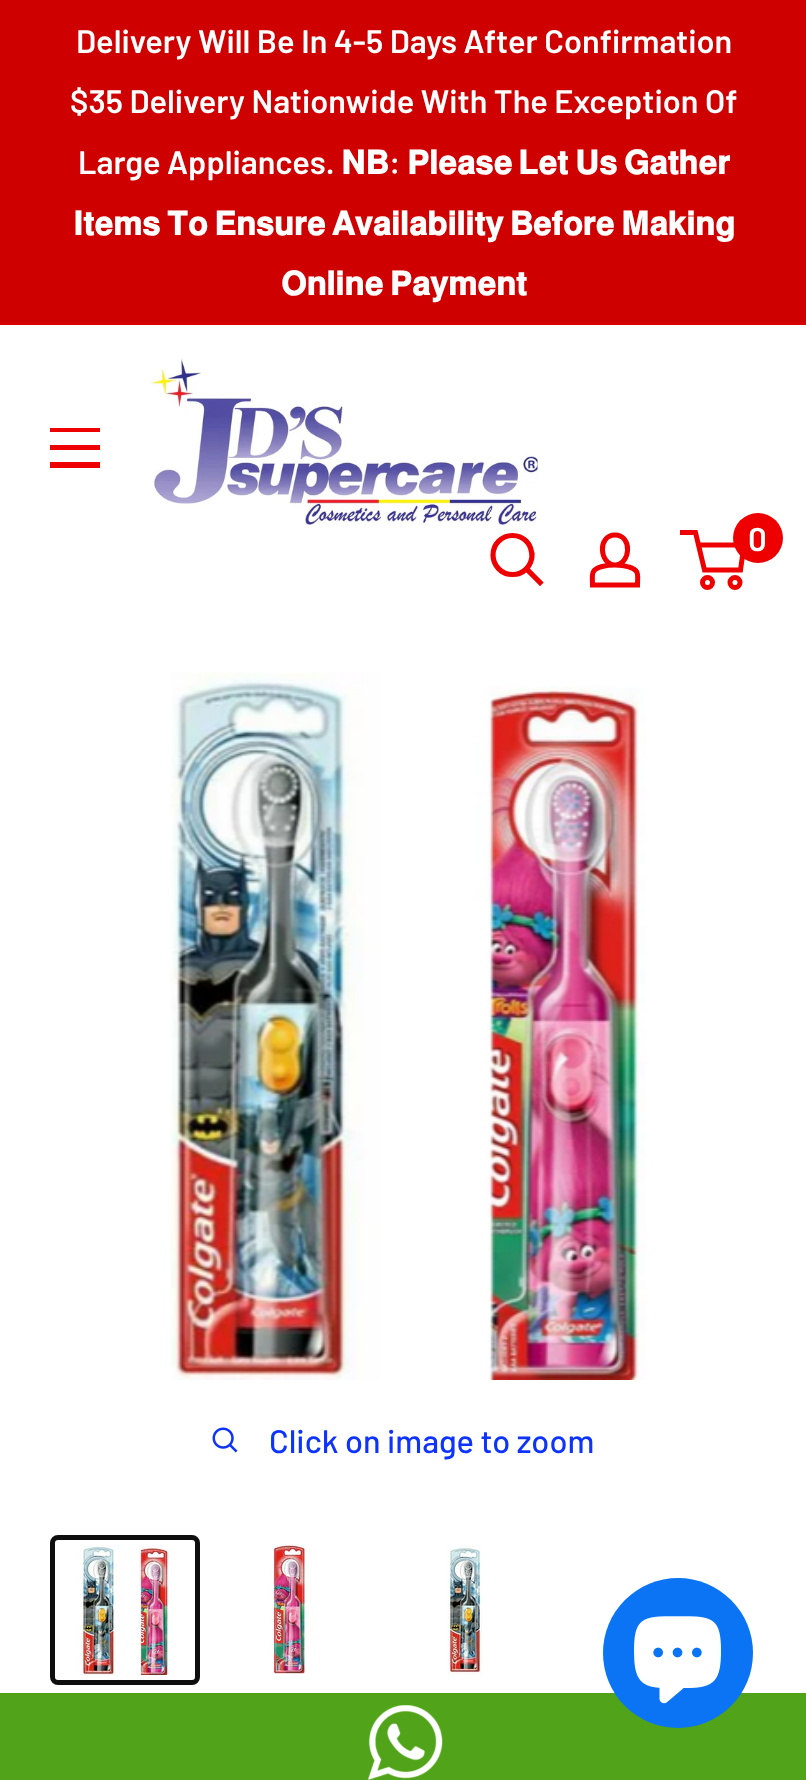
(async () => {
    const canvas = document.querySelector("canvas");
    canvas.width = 806;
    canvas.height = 1780;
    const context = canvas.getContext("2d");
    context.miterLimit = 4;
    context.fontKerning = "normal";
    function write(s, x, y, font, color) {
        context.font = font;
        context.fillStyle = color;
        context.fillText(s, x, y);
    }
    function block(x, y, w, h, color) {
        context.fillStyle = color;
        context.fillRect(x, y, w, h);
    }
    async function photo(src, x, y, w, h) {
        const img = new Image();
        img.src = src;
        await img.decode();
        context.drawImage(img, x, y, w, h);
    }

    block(0, 0, 806, 1780, "rgb(255, 255, 255)");
    block(0, 0, 806, 323, "rgb(207, 0, 0)");
    block(0, 323, 806, 2, "rgb(216, 0, 0)");
    write("Delivery Will Be In 4-5 Days After Confirmation", 76, 53, "600 32.5px Barlow", "rgb(255, 255, 255)");
    write("$35 Delivery Nationwide With The Exception Of", 70, 113, "600 32.5px Barlow", "rgb(255, 255, 255)");
    write("Large Appliances.", 78, 174, "600 32.5px Barlow", "rgb(255, 255, 255)");
    write("𝐍𝐁", 341, 174, "bold 32.5px FreeSans", "rgb(255, 255, 255)");
    write(":", 389, 174, "600 32.5px Barlow", "rgb(255, 255, 255)");
    write("𝐏𝐥𝐞𝐚𝐬𝐞", 407, 174, "bold 32.5px FreeSans", "rgb(255, 255, 255)");
    write("𝐋𝐞𝐭", 518, 174, "bold 32.5px FreeSans", "rgb(255, 255, 255)");
    write("𝐔𝐬", 575, 174, "bold 32.5px FreeSans", "rgb(255, 255, 255)");
    write("𝐆𝐚𝐭𝐡𝐞𝐫", 624, 174, "bold 32.5px FreeSans", "rgb(255, 255, 255)");
    context.wordSpacing = "-1.5px";
    write("𝐈𝐭𝐞𝐦𝐬 𝐓𝐨 𝐄𝐧𝐬𝐮𝐫𝐞 𝐀𝐯𝐚𝐢𝐥𝐚𝐛𝐢𝐥𝐢𝐭𝐲 𝐁𝐞𝐟𝐨𝐫𝐞 𝐌𝐚𝐤𝐢𝐧𝐠", 73, 235, "bold 32.5px FreeSans", "rgb(255, 255, 255)");
    write("𝐎𝐧𝐥𝐢𝐧𝐞 𝐏𝐚𝐲𝐦𝐞𝐧𝐭", 281, 295, "bold 32.5px FreeSans", "rgb(255, 255, 255)");
    context.fillStyle = "rgb(238, 0, 0)";
    context.beginPath();
    context.moveTo(50, 462);
    context.lineTo(100, 462);
    context.lineTo(100, 468);
    context.lineTo(50, 468);
    context.closePath();
    context.moveTo(50, 428);
    context.lineTo(100, 428);
    context.lineTo(100, 432);
    context.lineTo(50, 432);
    context.closePath();
    context.moveTo(50, 445);
    context.lineTo(100, 445);
    context.lineTo(100, 450);
    context.lineTo(50, 450);
    context.closePath();
    context.fill("evenodd");
    await photo("media/1.png", 150, 357, 388, 170);
    context.beginPath();
    context.moveTo(540, 582.5);
    context.lineTo(526.5, 569);
    context.strokeStyle = "rgb(238, 0, 0)";
    context.lineWidth = 5.2;
    context.lineCap = "square";
    context.stroke();
    context.beginPath();
    context.arc(512.5, 555, 19.5, 0, Math.PI * 2);
    context.stroke();
    context.beginPath();
    context.moveTo(615, 565);
    context.bezierCurveTo(619.5, 565, 624.5, 565.5, 629, 567);
    context.bezierCurveTo(640, 570, 637.5, 575.5, 637.5, 585);
    context.lineTo(592.5, 585);
    context.bezierCurveTo(592.5, 575, 590, 569.5, 602, 566.5);
    context.bezierCurveTo(606, 565.5, 610.5, 565, 615, 565);
    context.closePath();
    context.moveTo(615, 565);
    context.bezierCurveTo(599.5, 565, 597, 535, 615, 535);
    context.bezierCurveTo(633, 535, 630.5, 565, 615, 565);
    context.closePath();
    context.lineWidth = 5;
    context.lineCap = "butt";
    context.stroke();
    context.beginPath();
    context.arc(707.5, 582.5, 5, 0, Math.PI * 2);
    context.stroke();
    context.beginPath();
    context.arc(735, 582.5, 5, 0, Math.PI * 2);
    context.stroke();
    context.beginPath();
    context.moveTo(698.5, 545);
    context.lineTo(744, 545);
    context.lineTo(740.5, 570);
    context.lineTo(704.5, 570);
    context.lineTo(695.5, 532.5);
    context.lineTo(680, 532.5);
    context.stroke();
    context.beginPath();
    context.arc(758, 538, 25, 0, Math.PI * 2);
    context.fill();
    context.wordSpacing = "0px";
    write("0", 748, 551, "600 33px Barlow", "rgb(255, 255, 255)");
    await photo("media/2.png", 170, 672, 476, 708);
    await photo("media/3.png", 212, 1427, 26, 26);
    write("Click on image to zoom", 269, 1453, "500 32.5px Barlow", "rgb(13, 51, 253)");
    context.beginPath();
    context.roundRect(52.5, 1537.5, 145, 145, 5.5);
    context.strokeStyle = "rgb(14, 14, 14)";
    context.stroke();
    await photo("media/4.png", 76, 1545, 96, 130);
    await photo("media/5.png", 270, 1545, 40, 130);
    await photo("media/6.png", 446, 1545, 36, 130);
    block(0, 1693, 806, 87, "rgb(81, 164, 25)");
    context.fillStyle = "rgb(10, 116, 244)";
    context.beginPath();
    context.arc(678, 1653, 75, 0, Math.PI * 2);
    context.fill();
    await photo("media/7.png", 634, 1616, 87, 88);
    await photo("media/8.png", 367, 1705, 76, 75);
})();
